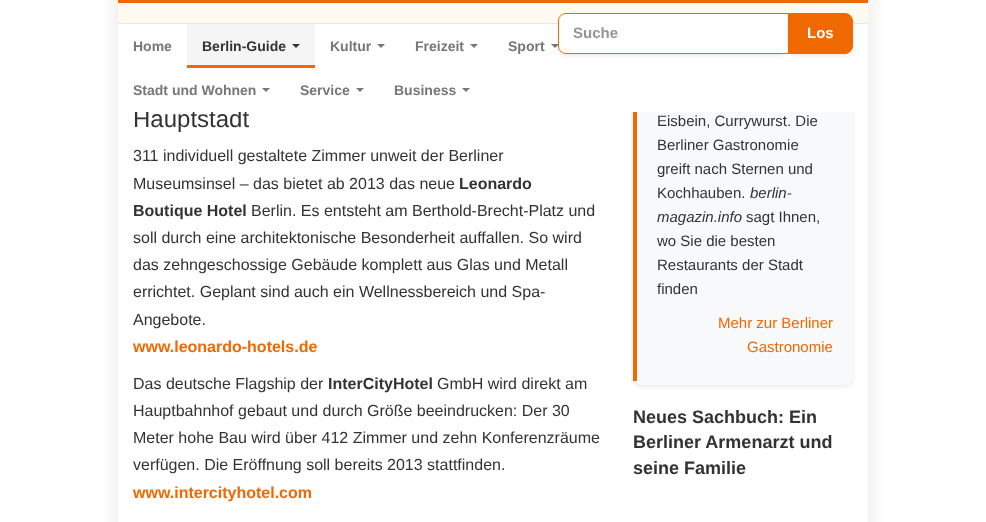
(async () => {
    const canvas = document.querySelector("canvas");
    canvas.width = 986;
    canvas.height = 522;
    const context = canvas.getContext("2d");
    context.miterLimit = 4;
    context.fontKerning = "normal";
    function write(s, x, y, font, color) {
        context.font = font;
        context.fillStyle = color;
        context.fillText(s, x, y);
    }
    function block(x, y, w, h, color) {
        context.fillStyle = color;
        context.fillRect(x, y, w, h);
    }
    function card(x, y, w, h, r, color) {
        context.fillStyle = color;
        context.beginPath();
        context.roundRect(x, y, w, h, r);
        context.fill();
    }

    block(0, 0, 986, 522, "rgb(255, 255, 255)");
    context.save();
    context.beginPath();
    context.moveTo(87, 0);
    context.lineTo(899, 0);
    context.lineTo(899, 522);
    context.lineTo(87, 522);
    context.closePath();
    context.moveTo(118, -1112);
    context.lineTo(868, -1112);
    context.lineTo(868, 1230);
    context.lineTo(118, 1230);
    context.closePath();
    context.clip("evenodd");
    context.fillStyle = "rgba(0, 0, 0, 0.1)";
    context.filter = "blur(10px)";
    context.beginPath();
    context.rect(118, -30, 750, 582);
    context.fill();
    context.filter = "none";
    context.restore();
    context.fillStyle = "rgba(0, 0, 0, 0.08)";
    context.filter = "blur(2px)";
    context.beginPath();
    context.roundRect(633, -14, 220, 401, 8);
    context.fill();
    context.filter = "none";
    card(633, -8, 220, 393, 8, "rgb(248, 249, 250)");
    block(118, 3, 750, 20, "rgb(254, 250, 240)");
    block(118, 0, 750, 3, "rgb(240, 104, 0)");
    write("Hauptstadt", 133, 127, "24px Liberation Sans", "rgb(51, 51, 51)");
    block(134, 24, 721, 88, "rgb(255, 255, 255)");
    block(118, 23, 750, 1, "rgb(231, 231, 231)");
    context.fillStyle = "rgb(119, 119, 119)";
    context.beginPath();
    context.moveTo(551, 44);
    context.lineTo(559, 44);
    context.lineTo(555, 48);
    context.closePath();
    context.fill();
    context.fillStyle = "rgba(0, 0, 0, 0.08)";
    context.filter = "blur(2px)";
    context.beginPath();
    context.roundRect(558, 15, 230, 41, 8);
    context.fill();
    context.filter = "none";
    context.fillStyle = "rgb(255, 255, 255)";
    context.beginPath();
    context.roundRect(558, 13, 230, 41, [8, 0, 0, 8]);
    context.fill();
    context.fillStyle = "rgb(240, 104, 0)";
    context.beginPath();
    context.moveTo(566, 13);
    context.lineTo(788, 13);
    context.lineTo(788, 54);
    context.lineTo(566, 54);
    context.bezierCurveTo(562, 54, 558, 50, 558, 46);
    context.lineTo(558, 21);
    context.bezierCurveTo(558, 17, 562, 13, 566, 13);
    context.closePath();
    context.moveTo(566, 14);
    context.lineTo(788, 14);
    context.lineTo(788, 53);
    context.lineTo(566, 53);
    context.bezierCurveTo(562, 53, 559, 50, 559, 46);
    context.lineTo(559, 21);
    context.bezierCurveTo(559, 17, 562, 14, 566, 14);
    context.closePath();
    context.fill("evenodd");
    write("Suche", 573, 38, "bold 15px Liberation Sans", "rgb(148, 148, 148)");
    context.fillStyle = "rgba(0, 0, 0, 0.08)";
    context.filter = "blur(2px)";
    context.beginPath();
    context.roundRect(788, 15, 65, 41, 8);
    context.fill();
    context.filter = "none";
    context.fillStyle = "rgb(240, 104, 0)";
    context.beginPath();
    context.roundRect(788.5, 13.5, 64, 40, [0, 7.5, 7.5, 0]);
    context.fill();
    context.strokeStyle = "rgb(240, 104, 0)";
    context.stroke();
    write("Los", 807, 38, "bold 15px Liberation Sans", "rgb(255, 255, 255)");
    write("Home", 133, 51, "bold 14px Liberation Sans", "rgb(119, 119, 119)");
    block(187, 24, 128, 41, "rgb(245, 245, 245)");
    write("Berlin-Guide", 202, 51, "bold 14px Liberation Sans", "rgb(51, 51, 51)");
    context.beginPath();
    context.moveTo(292, 44);
    context.lineTo(300, 44);
    context.lineTo(296, 48);
    context.closePath();
    context.fill();
    block(187, 65, 128, 3, "rgb(240, 104, 0)");
    write("Kultur", 330, 51, "bold 14px Liberation Sans", "rgb(119, 119, 119)");
    context.beginPath();
    context.moveTo(377, 44);
    context.lineTo(385, 44);
    context.lineTo(381, 48);
    context.closePath();
    context.fill();
    write("Freizeit", 415, 51, "bold 14px Liberation Sans", "rgb(119, 119, 119)");
    context.beginPath();
    context.moveTo(470, 44);
    context.lineTo(478, 44);
    context.lineTo(474, 48);
    context.closePath();
    context.fill();
    write("Sport", 508, 51, "bold 14px Liberation Sans", "rgb(119, 119, 119)");
    write("Stadt und Wohnen", 133, 95, "bold 14px Liberation Sans", "rgb(119, 119, 119)");
    context.beginPath();
    context.moveTo(262, 88);
    context.lineTo(270, 88);
    context.lineTo(266, 92);
    context.closePath();
    context.fill();
    write("Service", 300, 95, "bold 14px Liberation Sans", "rgb(119, 119, 119)");
    context.beginPath();
    context.moveTo(356, 88);
    context.lineTo(364, 88);
    context.lineTo(360, 92);
    context.closePath();
    context.fill();
    write("Business", 394, 95, "bold 14px Liberation Sans", "rgb(119, 119, 119)");
    context.beginPath();
    context.moveTo(462, 88);
    context.lineTo(470, 88);
    context.lineTo(466, 92);
    context.closePath();
    context.fill();
    write("311 individuell gestaltete Zimmer unweit der Berliner", 133, 161, "16px Liberation Sans", "rgb(51, 51, 51)");
    write("Museumsinsel – das bietet ab 2013 das neue", 133, 189, "16px Liberation Sans", "rgb(51, 51, 51)");
    write("Leonardo", 459, 189, "bold 16px Liberation Sans", "rgb(51, 51, 51)");
    write("Boutique Hotel", 133, 216, "bold 16px Liberation Sans", "rgb(51, 51, 51)");
    write("Berlin. Es entsteht am Berthold-Brecht-Platz und", 251, 216, "16px Liberation Sans", "rgb(51, 51, 51)");
    write("soll durch eine architektonische Besonderheit auffallen. So wird", 133, 243, "16px Liberation Sans", "rgb(51, 51, 51)");
    write("das zehngeschossige Gebäude komplett aus Glas und Metall", 133, 270, "16px Liberation Sans", "rgb(51, 51, 51)");
    write("errichtet. Geplant sind auch ein Wellnessbereich und Spa-", 133, 297, "16px Liberation Sans", "rgb(51, 51, 51)");
    write("Angebote.", 133, 325, "16px Liberation Sans", "rgb(51, 51, 51)");
    write("www.leonardo-hotels.de", 133, 352, "bold 16px Liberation Sans", "rgb(240, 104, 0)");
    write("Das deutsche Flagship der", 133, 389, "16px Liberation Sans", "rgb(51, 51, 51)");
    write("InterCityHotel", 328, 389, "bold 16px Liberation Sans", "rgb(51, 51, 51)");
    write("GmbH wird direkt am", 437, 389, "16px Liberation Sans", "rgb(51, 51, 51)");
    write("Hauptbahnhof gebaut und durch Größe beeindrucken: Der 30", 133, 416, "16px Liberation Sans", "rgb(51, 51, 51)");
    write("Meter hohe Bau wird über 412 Zimmer und zehn Konferenzräume", 133, 443, "16px Liberation Sans", "rgb(51, 51, 51)");
    write("verfügen. Die Eröffnung soll bereits 2013 stattfinden.", 133, 470, "16px Liberation Sans", "rgb(51, 51, 51)");
    write("www.intercityhotel.com", 133, 498, "bold 16px Liberation Sans", "rgb(240, 104, 0)");
    block(633, 112, 4, 269, "rgb(240, 104, 0)");
    write("Eisbein, Currywurst. Die", 657, 126, "15px Liberation Sans", "rgb(51, 51, 51)");
    write("Berliner Gastronomie", 657, 150, "15px Liberation Sans", "rgb(51, 51, 51)");
    write("greift nach Sternen und", 657, 174, "15px Liberation Sans", "rgb(51, 51, 51)");
    write("Kochhauben.", 657, 198, "15px Liberation Sans", "rgb(51, 51, 51)");
    write("berlin-", 750, 198, "italic 15px Liberation Sans", "rgb(51, 51, 51)");
    write("magazin.info", 657, 222, "italic 15px Liberation Sans", "rgb(51, 51, 51)");
    write("sagt Ihnen,", 746, 222, "15px Liberation Sans", "rgb(51, 51, 51)");
    write("wo Sie die besten", 657, 246, "15px Liberation Sans", "rgb(51, 51, 51)");
    write("Restaurants der Stadt", 657, 270, "15px Liberation Sans", "rgb(51, 51, 51)");
    write("finden", 657, 294, "15px Liberation Sans", "rgb(51, 51, 51)");
    write("Mehr zur Berliner", 718, 328, "15px Liberation Sans", "rgb(240, 104, 0)");
    write("Gastronomie", 747, 352, "15px Liberation Sans", "rgb(240, 104, 0)");
    write("Neues Sachbuch: Ein", 633, 423, "bold 18px Liberation Sans", "rgb(51, 51, 51)");
    write("Berliner Armenarzt und", 633, 448, "bold 18px Liberation Sans", "rgb(51, 51, 51)");
    write("seine Familie", 633, 474, "bold 18px Liberation Sans", "rgb(51, 51, 51)");
})();
